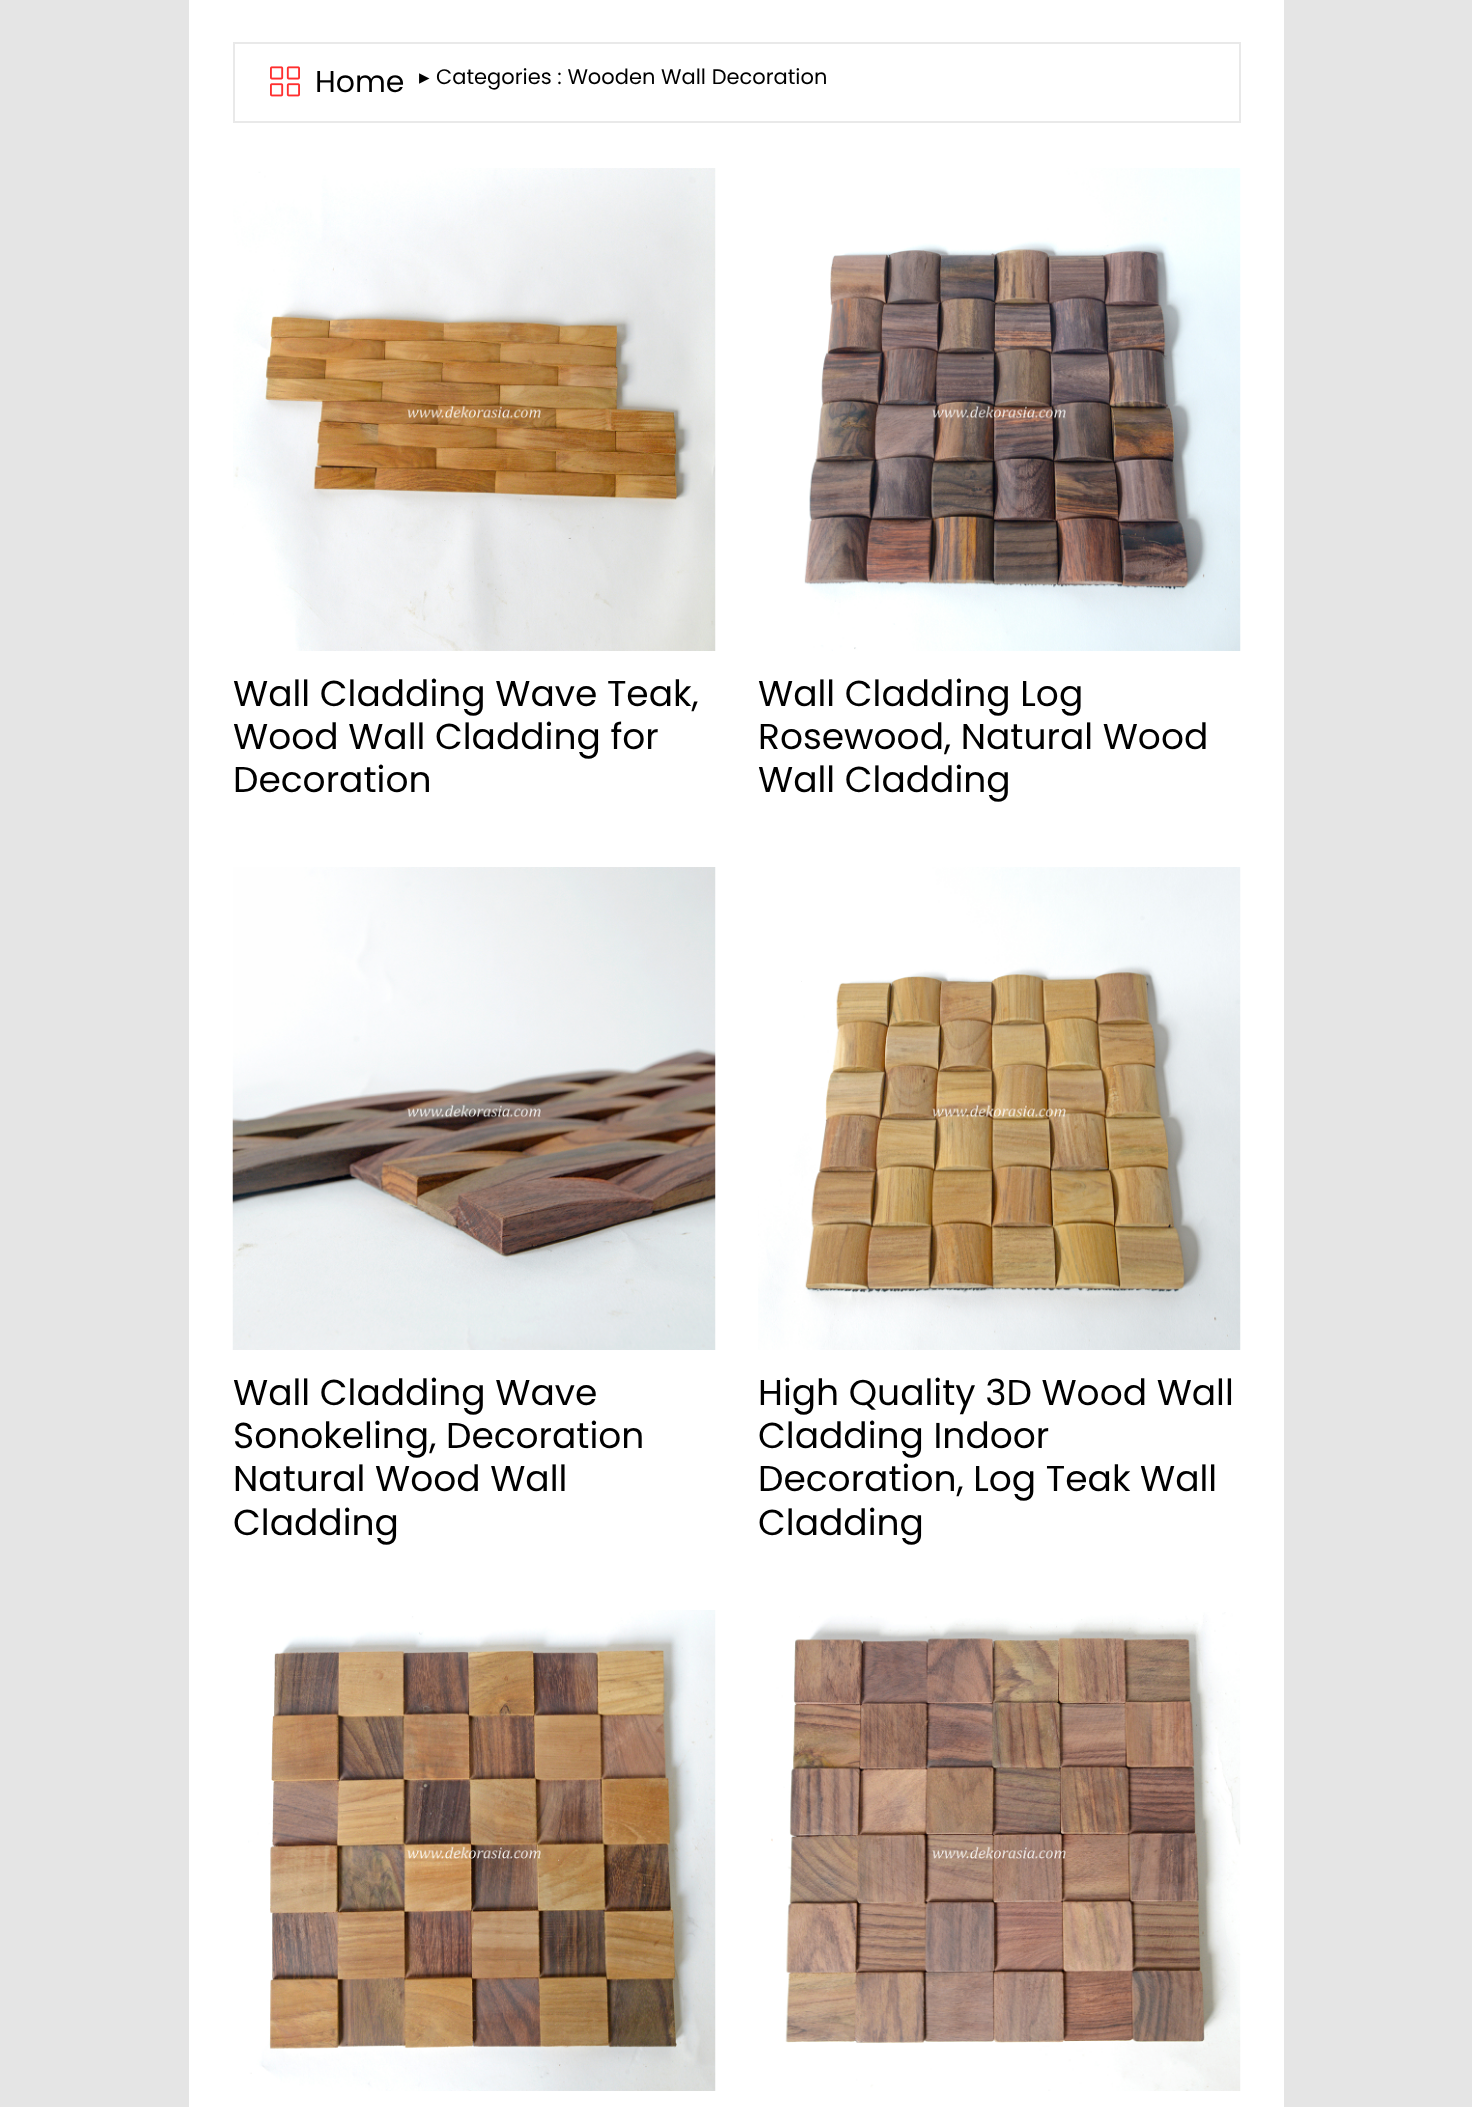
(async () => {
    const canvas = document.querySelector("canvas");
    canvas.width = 1472;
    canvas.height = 2107;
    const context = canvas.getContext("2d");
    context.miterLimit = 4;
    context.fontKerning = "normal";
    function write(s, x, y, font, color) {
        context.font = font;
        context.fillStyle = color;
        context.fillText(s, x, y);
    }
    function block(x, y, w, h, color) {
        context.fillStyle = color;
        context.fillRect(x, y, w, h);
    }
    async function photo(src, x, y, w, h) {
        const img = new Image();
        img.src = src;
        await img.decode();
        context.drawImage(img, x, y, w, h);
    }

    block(0, 0, 1472, 2107, "rgb(229, 229, 229)");
    block(189, 0, 1095, 2107, "rgb(255, 255, 255)");
    context.strokeStyle = "rgb(233, 233, 233)";
    context.lineWidth = 2;
    context.strokeRect(234, 43, 1006, 79);
    await photo("media/1.png", 270, 66, 30, 31);
    write("Home", 315, 92, "30px Poppins", "rgb(0, 0, 0)");
    write("▸", 419, 84, "21px DejaVu Sans", "rgb(0, 0, 0)");
    write("Categories : Wooden Wall Decoration", 436, 84, "21px Poppins", "rgb(0, 0, 0)");
    await photo("media/2.png", 233, 168, 483, 483);
    write("Wall Cladding Wave Teak,", 233, 706, "36px Poppins", "rgb(0, 0, 0)");
    write("Wood Wall Cladding for", 233, 749, "36px Poppins", "rgb(0, 0, 0)");
    write("Decoration", 233, 792, "36px Poppins", "rgb(0, 0, 0)");
    await photo("media/3.png", 804, 168, 437, 483);
    write("Wall Cladding Log", 758, 706, "36px Poppins", "rgb(0, 0, 0)");
    write("Rosewood, Natural Wood", 758, 749, "36px Poppins", "rgb(0, 0, 0)");
    write("Wall Cladding", 758, 792, "36px Poppins", "rgb(0, 0, 0)");
    await photo("media/4.png", 232, 867, 484, 483);
    write("Wall Cladding Wave", 233, 1405, "36px Poppins", "rgb(0, 0, 0)");
    write("Sonokeling, Decoration", 233, 1448, "36px Poppins", "rgb(0, 0, 0)");
    write("Natural Wood Wall", 233, 1491, "36px Poppins", "rgb(0, 0, 0)");
    write("Cladding", 233, 1535, "36px Poppins", "rgb(0, 0, 0)");
    await photo("media/5.png", 758, 867, 483, 483);
    write("High Quality 3D Wood Wall", 758, 1405, "36px Poppins", "rgb(0, 0, 0)");
    write("Cladding Indoor", 758, 1448, "36px Poppins", "rgb(0, 0, 0)");
    write("Decoration, Log Teak Wall", 758, 1491, "36px Poppins", "rgb(0, 0, 0)");
    write("Cladding", 758, 1535, "36px Poppins", "rgb(0, 0, 0)");
    await photo("media/6.png", 248, 1610, 468, 481);
    await photo("media/7.png", 771, 1612, 470, 479);
})();
